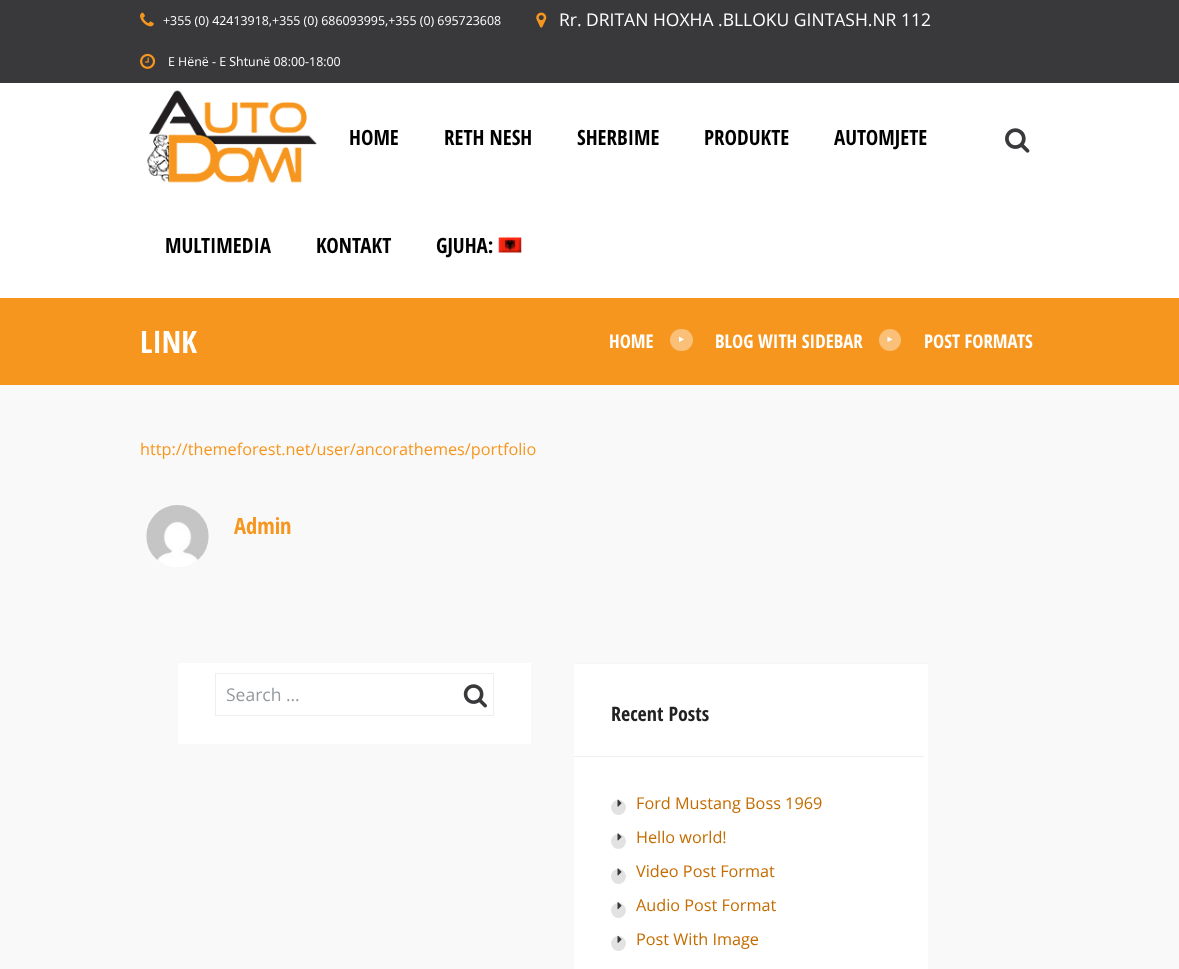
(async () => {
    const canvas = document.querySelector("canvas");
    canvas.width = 1179;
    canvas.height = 969;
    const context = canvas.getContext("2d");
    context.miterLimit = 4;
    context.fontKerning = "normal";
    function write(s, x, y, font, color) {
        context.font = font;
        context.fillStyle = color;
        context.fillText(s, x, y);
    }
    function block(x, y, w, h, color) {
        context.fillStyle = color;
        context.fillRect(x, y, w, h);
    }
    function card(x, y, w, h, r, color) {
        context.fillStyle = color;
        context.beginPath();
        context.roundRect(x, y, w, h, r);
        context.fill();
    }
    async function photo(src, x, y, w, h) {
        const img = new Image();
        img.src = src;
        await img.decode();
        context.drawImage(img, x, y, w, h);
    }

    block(0, 0, 1179, 969, "rgb(249, 249, 249)");
    block(0, 0, 1179, 83, "rgb(57, 57, 59)");
    await photo("media/1.png", 140, 12, 14, 15);
    write("+355 (0) 42413918,+355 (0) 686093995,+355 (0) 695723608", 163, 25, "12.4px Open Sans", "rgb(255, 255, 255)");
    await photo("media/2.png", 536, 12, 11, 16);
    write("Rr. DRITAN HOXHA .BLLOKU GINTASH.NR 112", 559, 26, "17.5px Open Sans", "rgb(255, 255, 255)");
    await photo("media/3.png", 140, 53, 16, 16);
    write("E Hënë - E Shtunë 08:00-18:00", 168, 66, "12.4px Open Sans", "rgb(255, 255, 255)");
    block(0, 83, 1179, 215, "rgb(255, 255, 255)");
    await photo("media/4.png", 147, 90, 170, 93);
    await photo("media/5.png", 1005, 128, 25, 25);
    write("HOME", 349, 145, "bold 21px Open Sans Condensed", "rgb(0, 0, 0)");
    write("RETH NESH", 444, 145, "bold 21px Open Sans Condensed", "rgb(0, 0, 0)");
    write("SHERBIME", 577, 145, "bold 21px Open Sans Condensed", "rgb(0, 0, 0)");
    write("PRODUKTE", 704, 145, "bold 21px Open Sans Condensed", "rgb(0, 0, 0)");
    write("AUTOMJETE", 834, 145, "bold 21px Open Sans Condensed", "rgb(0, 0, 0)");
    write("MULTIMEDIA", 165, 253, "bold 21px Open Sans Condensed", "rgb(0, 0, 0)");
    write("KONTAKT", 316, 253, "bold 21px Open Sans Condensed", "rgb(0, 0, 0)");
    write("GJUHA:", 436, 253, "bold 21px Open Sans Condensed", "rgb(0, 0, 0)");
    await photo("media/6.png", 498, 237, 24, 16);
    block(0, 298, 1179, 87, "rgb(247, 150, 30)");
    write("LINK", 140, 353, "bold 31px Open Sans Condensed", "rgb(255, 255, 255)");
    write("HOME", 609, 348, "bold 18.75px Open Sans Condensed", "rgb(255, 255, 255)");
    card(670, 329, 23, 22, 11, "rgb(250, 192, 120)");
    context.fillStyle = "rgb(255, 255, 255)";
    context.beginPath();
    context.moveTo(679, 336.5);
    context.lineTo(684, 339.5);
    context.lineTo(679, 342);
    context.closePath();
    context.fill();
    write("BLOG WITH SIDEBAR", 715, 348, "bold 18.75px Open Sans Condensed", "rgb(255, 255, 255)");
    context.fillStyle = "rgb(250, 192, 120)";
    context.beginPath();
    context.arc(890, 340, 11, 0, Math.PI * 2);
    context.fill();
    context.fillStyle = "rgb(255, 255, 255)";
    context.beginPath();
    context.moveTo(887.5, 336.5);
    context.lineTo(892.5, 339.5);
    context.lineTo(887.5, 342);
    context.closePath();
    context.fill();
    write("POST FORMATS", 924, 348, "bold 18.75px Open Sans Condensed", "rgb(255, 255, 255)");
    write("http://themeforest.net/user/ancorathemes/portfolio", 140, 455, "16.25px Open Sans", "rgb(247, 150, 30)");
    await photo("media/7.png", 146, 505, 63, 62);
    write("Admin", 234, 534, "bold 22.5px Open Sans Condensed", "rgb(247, 150, 30)");
    block(178, 663, 353, 81, "rgb(255, 255, 255)");
    context.strokeStyle = "rgb(239, 239, 239)";
    context.strokeRect(215.5, 673.5, 278, 42);
    write("Search …", 226, 701, "17.5px Open Sans", "rgb(149, 154, 158)");
    await photo("media/8.png", 463, 684, 24, 24);
    block(574, 664, 354, 305, "rgb(255, 255, 255)");
    block(574, 663, 354, 1, "rgb(244, 247, 249)");
    write("Recent Posts", 611, 721, "bold 20px Open Sans Condensed", "rgb(34, 34, 34)");
    block(574, 756, 350, 1, "rgb(239, 239, 239)");
    context.fillStyle = "rgb(226, 226, 226)";
    context.beginPath();
    context.arc(618.5, 807.5, 7.5, 0, Math.PI * 2);
    context.fill();
    await photo("media/9.png", 617, 799, 5, 8);
    write("Ford Mustang Boss 1969", 636, 809, "16.25px Open Sans", "rgb(196, 108, 0)");
    context.fillStyle = "rgb(226, 226, 226)";
    context.beginPath();
    context.arc(618.5, 841.5, 7.5, 0, Math.PI * 2);
    context.fill();
    await photo("media/10.png", 617, 833, 5, 8);
    write("Hello world!", 636, 843, "16.25px Open Sans", "rgb(196, 108, 0)");
    context.fillStyle = "rgb(226, 226, 226)";
    context.beginPath();
    context.arc(618.5, 876.5, 7.5, 0, Math.PI * 2);
    context.fill();
    await photo("media/10.png", 617, 868, 5, 8);
    write("Video Post Format", 636, 877, "16.25px Open Sans", "rgb(196, 108, 0)");
    context.fillStyle = "rgb(226, 226, 226)";
    context.beginPath();
    context.arc(618.5, 910.5, 7.5, 0, Math.PI * 2);
    context.fill();
    await photo("media/11.png", 617, 902, 5, 8);
    write("Audio Post Format", 636, 911, "16.25px Open Sans", "rgb(196, 108, 0)");
    context.fillStyle = "rgb(226, 226, 226)";
    context.beginPath();
    context.arc(618.5, 943.5, 7.5, 0, Math.PI * 2);
    context.fill();
    await photo("media/12.png", 617, 935, 5, 8);
    write("Post With Image", 636, 945, "16.25px Open Sans", "rgb(196, 108, 0)");
})();
